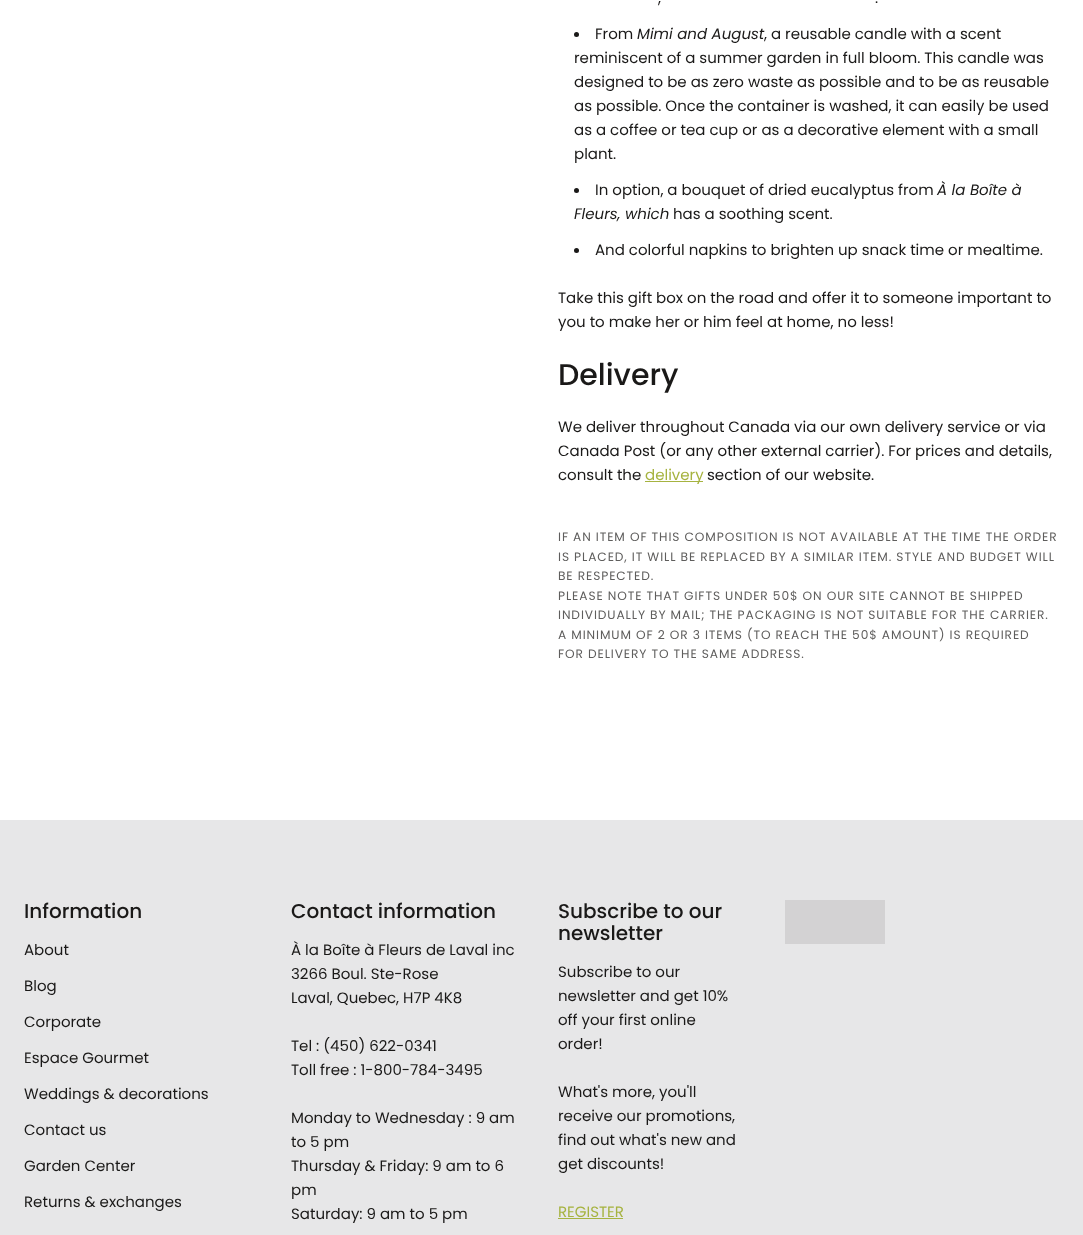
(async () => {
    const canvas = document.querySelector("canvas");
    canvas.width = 1083;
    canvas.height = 1235;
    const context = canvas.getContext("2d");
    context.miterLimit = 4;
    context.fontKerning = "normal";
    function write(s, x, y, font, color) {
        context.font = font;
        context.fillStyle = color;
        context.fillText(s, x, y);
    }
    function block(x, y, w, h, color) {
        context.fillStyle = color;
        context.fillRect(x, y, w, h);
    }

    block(0, 0, 1083, 1235, "rgb(255, 255, 255)");
    write(",", 658, 3, "15px Poppins", "rgb(26, 25, 24)");
    write(".", 875, 3, "15px Poppins", "rgb(26, 25, 24)");
    context.beginPath();
    context.arc(576.5, 34.5, 2.5, 0, Math.PI * 2);
    context.fill();
    write("From", 595, 39, "15px Poppins", "rgb(26, 25, 24)");
    write("Mimi and August", 637, 39, "italic 15px Poppins", "rgb(26, 25, 24)");
    write(", a reusable candle with a scent", 764, 39, "15px Poppins", "rgb(26, 25, 24)");
    write("reminiscent of a summer garden in full bloom. This candle was", 574, 63, "15px Poppins", "rgb(26, 25, 24)");
    write("designed to be as zero waste as possible and to be as reusable", 574, 87, "15px Poppins", "rgb(26, 25, 24)");
    write("as possible. Once the container is washed, it can easily be used", 574, 111, "15px Poppins", "rgb(26, 25, 24)");
    write("as a coffee or tea cup or as a decorative element with a small", 574, 135, "15px Poppins", "rgb(26, 25, 24)");
    write("plant.", 574, 159, "15px Poppins", "rgb(26, 25, 24)");
    context.beginPath();
    context.arc(576.5, 190.5, 2.5, 0, Math.PI * 2);
    context.fill();
    write("In option, a bouquet of dried eucalyptus from", 595, 195, "15px Poppins", "rgb(26, 25, 24)");
    write("À la Boîte à", 937, 195, "italic 15px Poppins", "rgb(26, 25, 24)");
    write("Fleurs, which", 574, 219, "italic 15px Poppins", "rgb(26, 25, 24)");
    write("has a soothing scent.", 673, 219, "15px Poppins", "rgb(26, 25, 24)");
    context.beginPath();
    context.arc(576.5, 250.5, 2.5, 0, Math.PI * 2);
    context.fill();
    write("And colorful napkins to brighten up snack time or mealtime.", 595, 255, "15px Poppins", "rgb(26, 25, 24)");
    write("Take this gift box on the road and offer it to someone important to", 558, 303, "15px Poppins", "rgb(26, 25, 24)");
    write("you to make her or him feel at home, no less!", 558, 327, "15px Poppins", "rgb(26, 25, 24)");
    write("Delivery", 558, 385, "500 30px Poppins", "rgb(26, 25, 24)");
    write("We deliver throughout Canada via our own delivery service or via", 558, 432, "15px Poppins", "rgb(26, 25, 24)");
    write("Canada Post (or any other external carrier). For prices and details,", 558, 456, "15px Poppins", "rgb(26, 25, 24)");
    write("consult the", 558, 480, "15px Poppins", "rgb(26, 25, 24)");
    block(645, 481, 58, 1, "rgb(166, 179, 64)");
    write("delivery", 645, 480, "15px Poppins", "rgb(166, 179, 64)");
    write("section of our website.", 707, 480, "15px Poppins", "rgb(26, 25, 24)");
    context.letterSpacing = "0.9px";
    write("IF AN ITEM OF THIS COMPOSITION IS NOT AVAILABLE AT THE TIME THE ORDER", 558, 541, "12.2px Poppins", "rgb(95, 94, 93)");
    write("IS PLACED, IT WILL BE REPLACED BY A SIMILAR ITEM. STYLE AND BUDGET WILL", 558, 561, "12.2px Poppins", "rgb(95, 94, 93)");
    write("BE RESPECTED.", 558, 580, "12.2px Poppins", "rgb(95, 94, 93)");
    write("PLEASE NOTE THAT GIFTS UNDER 50$ ON OUR SITE CANNOT BE SHIPPED", 558, 600, "12.2px Poppins", "rgb(95, 94, 93)");
    write("INDIVIDUALLY BY MAIL; THE PACKAGING IS NOT SUITABLE FOR THE CARRIER.", 558, 619, "12.2px Poppins", "rgb(95, 94, 93)");
    write("A MINIMUM OF 2 OR 3 ITEMS (TO REACH THE 50$ AMOUNT) IS REQUIRED", 558, 639, "12.2px Poppins", "rgb(95, 94, 93)");
    write("FOR DELIVERY TO THE SAME ADDRESS.", 558, 658, "12.2px Poppins", "rgb(95, 94, 93)");
    block(0, 820, 1083, 415, "rgb(231, 231, 232)");
    context.letterSpacing = "0px";
    write("Information", 24, 918, "500 20px Poppins", "rgb(26, 25, 24)");
    write("About", 24, 955, "15px Poppins", "rgb(26, 25, 24)");
    write("Blog", 24, 991, "15px Poppins", "rgb(26, 25, 24)");
    write("Corporate", 24, 1027, "15px Poppins", "rgb(26, 25, 24)");
    write("Espace Gourmet", 24, 1063, "15px Poppins", "rgb(26, 25, 24)");
    write("Weddings & decorations", 24, 1099, "15px Poppins", "rgb(26, 25, 24)");
    write("Contact us", 24, 1135, "15px Poppins", "rgb(26, 25, 24)");
    write("Garden Center", 24, 1171, "15px Poppins", "rgb(26, 25, 24)");
    write("Returns & exchanges", 24, 1207, "15px Poppins", "rgb(26, 25, 24)");
    write("Contact information", 291, 918, "500 20px Poppins", "rgb(26, 25, 24)");
    write("À la Boîte à Fleurs de Laval inc", 291, 955, "15px Poppins", "rgb(26, 25, 24)");
    write("3266 Boul. Ste-Rose", 291, 979, "15px Poppins", "rgb(26, 25, 24)");
    write("Laval, Quebec, H7P 4K8", 291, 1003, "15px Poppins", "rgb(26, 25, 24)");
    write("Tel : (450) 622-0341", 291, 1051, "15px Poppins", "rgb(26, 25, 24)");
    write("Toll free : 1-800-784-3495", 291, 1075, "15px Poppins", "rgb(26, 25, 24)");
    write("Monday to Wednesday : 9 am", 291, 1123, "15px Poppins", "rgb(26, 25, 24)");
    write("to 5 pm", 291, 1147, "15px Poppins", "rgb(26, 25, 24)");
    write("Thursday & Friday: 9 am to 6", 291, 1171, "15px Poppins", "rgb(26, 25, 24)");
    write("pm", 291, 1195, "15px Poppins", "rgb(26, 25, 24)");
    write("Saturday: 9 am to 5 pm", 291, 1219, "15px Poppins", "rgb(26, 25, 24)");
    write("Subscribe to our", 558, 918, "500 20px Poppins", "rgb(26, 25, 24)");
    write("newsletter", 558, 940, "500 20px Poppins", "rgb(26, 25, 24)");
    write("Subscribe to our", 558, 977, "15px Poppins", "rgb(26, 25, 24)");
    write("newsletter and get 10%", 558, 1001, "15px Poppins", "rgb(26, 25, 24)");
    write("off your first online", 558, 1025, "15px Poppins", "rgb(26, 25, 24)");
    write("order!", 558, 1049, "15px Poppins", "rgb(26, 25, 24)");
    write("What's more, you'll", 558, 1097, "15px Poppins", "rgb(26, 25, 24)");
    write("receive our promotions,", 558, 1121, "15px Poppins", "rgb(26, 25, 24)");
    write("find out what's new and", 558, 1145, "15px Poppins", "rgb(26, 25, 24)");
    write("get discounts!", 558, 1169, "15px Poppins", "rgb(26, 25, 24)");
    write("REGISTER", 558, 1217, "15px Poppins", "rgb(166, 179, 64)");
    block(558, 1218, 65, 1, "rgb(166, 179, 64)");
    block(785, 900, 100, 44, "rgb(211, 210, 211)");
})();
